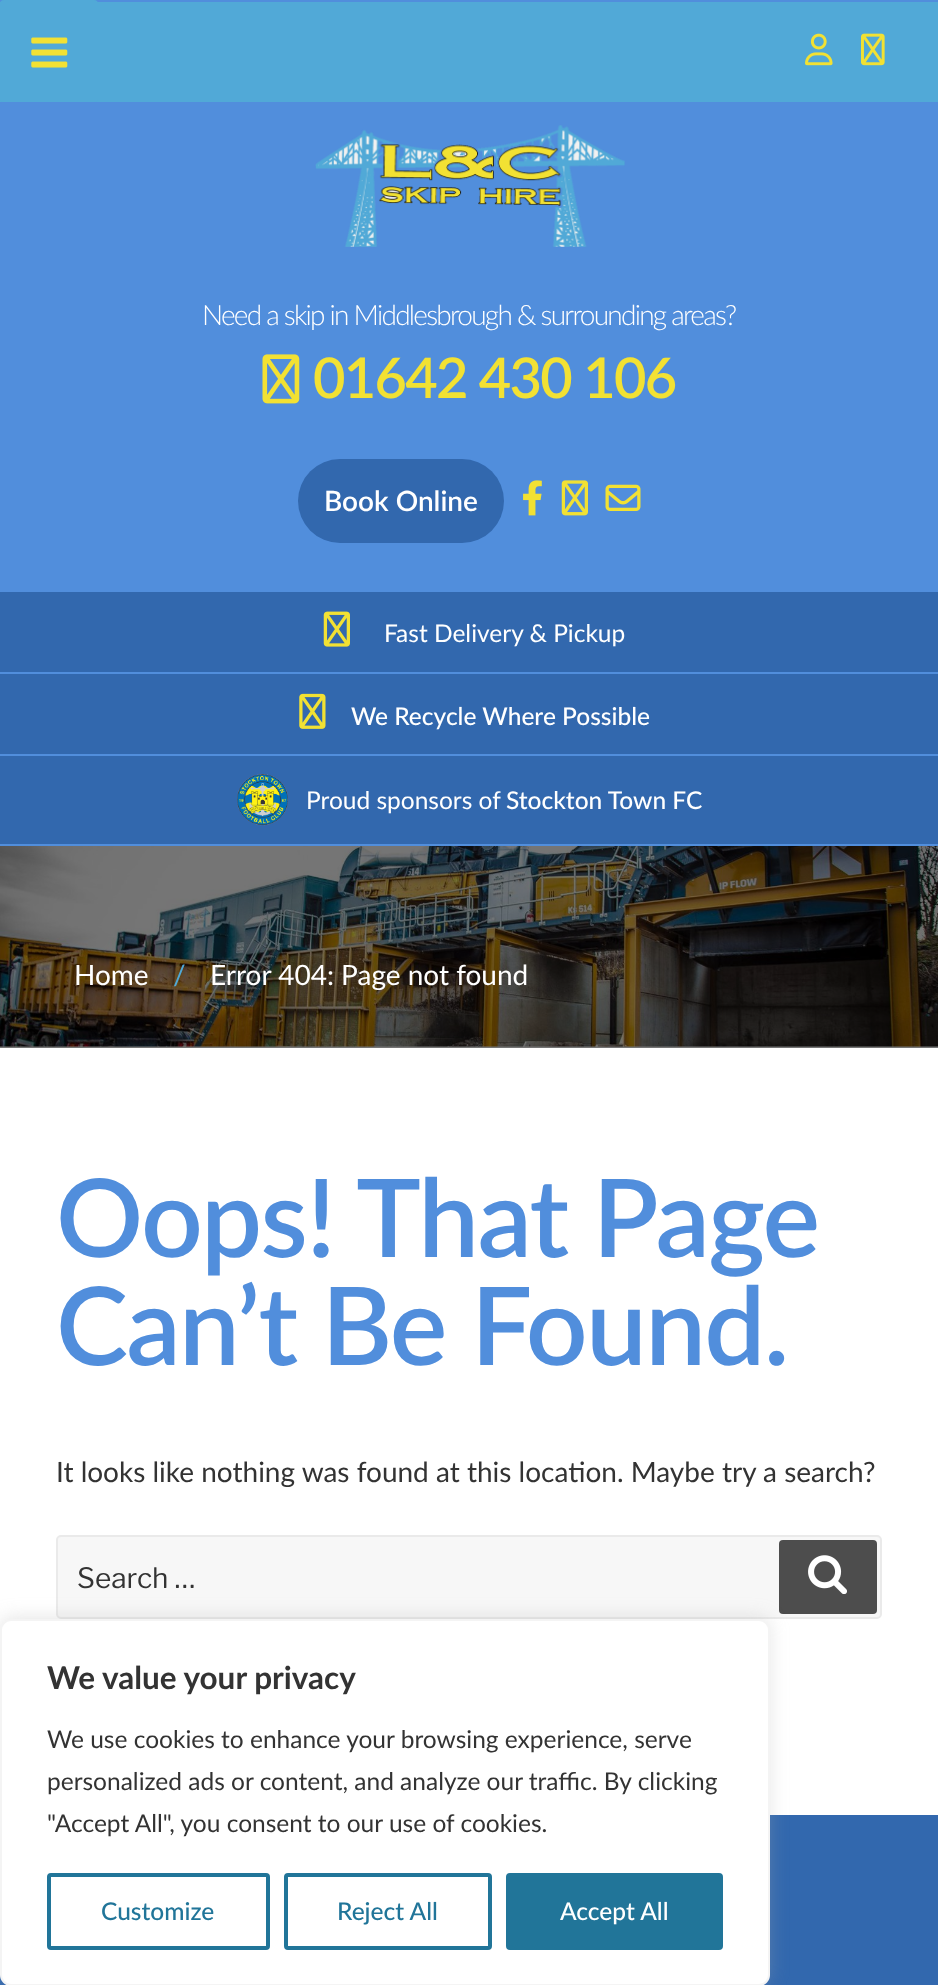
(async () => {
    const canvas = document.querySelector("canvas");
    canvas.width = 938;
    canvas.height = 1985;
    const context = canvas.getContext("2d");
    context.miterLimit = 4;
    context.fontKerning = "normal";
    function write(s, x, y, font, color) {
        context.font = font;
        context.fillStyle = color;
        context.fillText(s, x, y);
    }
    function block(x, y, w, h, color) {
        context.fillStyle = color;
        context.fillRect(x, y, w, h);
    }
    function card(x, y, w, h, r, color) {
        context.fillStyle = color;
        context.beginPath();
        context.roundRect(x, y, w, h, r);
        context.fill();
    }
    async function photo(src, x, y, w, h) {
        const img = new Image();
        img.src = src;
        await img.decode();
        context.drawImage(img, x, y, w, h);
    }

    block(0, 0, 938, 1985, "rgb(255, 255, 255)");
    block(0, 1046, 938, 2, "rgb(117, 117, 117)");
    block(0, 2, 938, 100, "rgb(81, 169, 215)");
    block(0, 0, 938, 2, "rgb(81, 142, 220)");
    card(0, 0, 98, 102, 4, "rgb(81, 169, 215)");
    await photo("media/1.png", 31, 37, 37, 31);
    block(0, 102, 938, 490, "rgb(81, 142, 220)");
    await photo("media/2.png", 805, 33, 28, 33);
    await photo("media/3.png", 861, 33, 24, 33);
    await photo("media/4.png", 315, 125, 310, 122);
    context.letterSpacing = "-1.75px";
    write("Need a skip in Middlesbrough & surrounding areas?", 202, 325, "300 28px Lato", "rgb(255, 255, 255)");
    await photo("media/5.png", 262, 354, 38, 50);
    write("01642 430 106", 313, 398, "600 56px Lato", "rgb(242, 225, 51)");
    card(298, 459, 206, 84, 42, "rgb(50, 104, 174)");
    context.letterSpacing = "0px";
    write("Book Online", 324, 511, "600 28px Lato", "rgb(255, 255, 255)");
    await photo("media/6.png", 523, 480, 19, 36);
    await photo("media/7.png", 561, 480, 27, 36);
    await photo("media/8.png", 605, 484, 36, 27);
    block(0, 592, 938, 252, "rgb(50, 104, 174)");
    block(0, 672, 938, 2, "rgb(81, 142, 220)");
    await photo("media/9.png", 323, 611, 27, 36);
    write("Fast Delivery & Pickup", 384, 642, "24.5px Lato", "rgb(255, 255, 255)");
    block(0, 754, 938, 2, "rgb(81, 142, 220)");
    await photo("media/10.png", 299, 693, 27, 36);
    write("We Recycle Where Possible", 351, 725, "500 24.5px Lato", "rgb(255, 255, 255)");
    block(0, 844, 938, 2, "rgb(81, 142, 220)");
    await photo("media/11.png", 237, 774, 51, 52);
    write("Proud sponsors of", 306, 809, "24.5px Lato", "rgb(255, 255, 255)");
    write("Stockton Town FC", 506, 809, "500 24.5px Lato", "rgb(255, 255, 255)");
    await photo("media/12.png", 0, 846, 938, 201);
    write("Home", 74, 985, "28px Lato", "rgb(255, 255, 255)");
    write("/", 173, 985, "28px Lato", "rgb(81, 169, 215)");
    write("Error 404: Page not found", 210, 985, "28px Lato", "rgb(255, 255, 255)");
    context.letterSpacing = "-1.75px";
    write("Oops! That Page", 56, 1257, "600 108.5px Lato", "rgb(81, 142, 220)");
    write("Can’t Be Found.", 56, 1365, "600 108.5px Lato", "rgb(81, 142, 220)");
    context.letterSpacing = "0px";
    write("It looks like nothing was found at this location. Maybe try a search?", 56, 1482, "28px Lato", "rgb(51, 51, 51)");
    context.fillStyle = "rgb(247, 247, 247)";
    context.beginPath();
    context.roundRect(57, 1536, 824, 82, 4);
    context.fill();
    context.strokeStyle = "rgb(234, 234, 234)";
    context.lineWidth = 2;
    context.stroke();
    write("Search …", 77, 1588, "28px Libre Franklin", "rgb(51, 51, 51)");
    card(779, 1540, 98, 74, 4, "rgb(77, 77, 77)");
    await photo("media/13.png", 808, 1555, 39, 39);
    block(0, 1815, 938, 170, "rgb(50, 104, 174)");
    context.fillStyle = "rgba(172, 171, 171, 0.3)";
    context.filter = "blur(9px)";
    context.beginPath();
    context.roundRect(0, 1617, 770, 368, 11);
    context.fill();
    context.filter = "none";
    context.fillStyle = "rgb(255, 255, 255)";
    context.beginPath();
    context.roundRect(1, 1620, 768, 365, 10);
    context.fill();
    context.strokeStyle = "rgb(244, 244, 244)";
    context.stroke();
    write("We value your privacy", 47, 1689, "bold 31.5px Lato", "rgb(51, 51, 51)");
    write("We use cookies to enhance your browsing experience, serve", 47, 1748, "24.5px Lato", "rgb(51, 51, 51)");
    write("personalized ads or content, and analyze our traffic. By clicking", 47, 1790, "24.5px Lato", "rgb(51, 51, 51)");
    write("\"Accept All\", you consent to our use of cookies.", 47, 1832, "24.5px Lato", "rgb(51, 51, 51)");
    context.beginPath();
    context.roundRect(49, 1875, 219, 73, 2);
    context.strokeStyle = "rgb(33, 117, 153)";
    context.lineWidth = 4;
    context.stroke();
    write("Customize", 101, 1920, "500 24.5px Lato", "rgb(33, 117, 153)");
    context.beginPath();
    context.roundRect(286, 1875, 204, 73, 2);
    context.stroke();
    write("Reject All", 337, 1920, "500 24.5px Lato", "rgb(33, 117, 153)");
    context.beginPath();
    context.roundRect(508, 1875, 213, 73, 2);
    context.fill();
    context.stroke();
    write("Accept All", 560, 1920, "500 24.5px Lato", "rgb(255, 255, 255)");
})();
